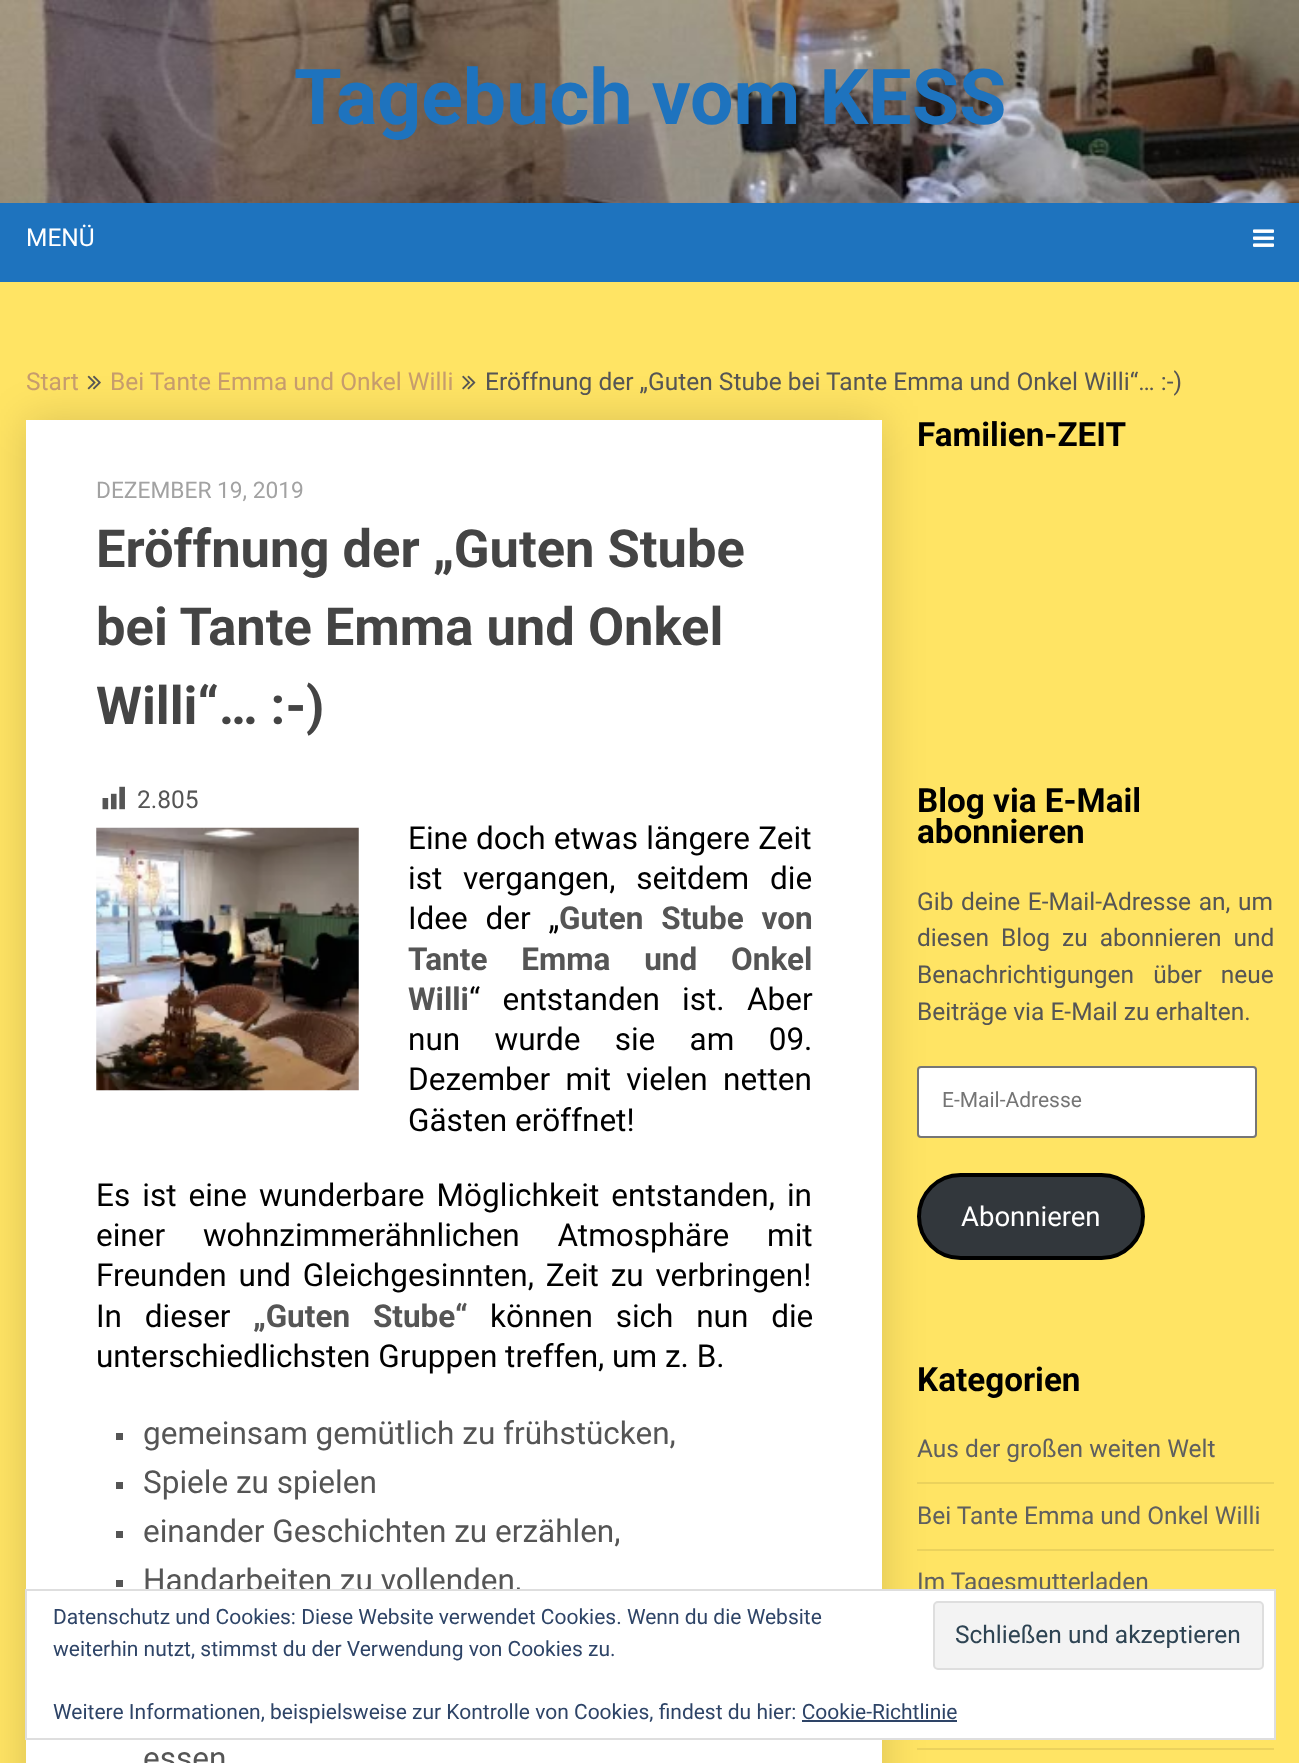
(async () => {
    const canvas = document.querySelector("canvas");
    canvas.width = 1299;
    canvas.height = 1763;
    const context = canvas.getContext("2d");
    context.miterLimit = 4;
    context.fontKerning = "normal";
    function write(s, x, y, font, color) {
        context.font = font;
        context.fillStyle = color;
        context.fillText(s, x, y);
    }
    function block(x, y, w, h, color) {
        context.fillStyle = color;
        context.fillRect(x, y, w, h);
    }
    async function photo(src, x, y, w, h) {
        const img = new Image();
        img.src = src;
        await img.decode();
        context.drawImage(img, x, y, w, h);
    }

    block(0, 0, 1299, 1763, "rgb(255, 228, 100)");
    await photo("media/1.png", 0, 0, 1299, 203);
    write("Tagebuch vom KESS", 294, 124, "bold 77px Roboto", "rgb(30, 115, 190)");
    block(0, 203, 1299, 79, "rgb(30, 115, 190)");
    write("MENÜ", 26, 246, "24.5px Roboto", "rgb(255, 255, 255)");
    await photo("media/2.png", 1253, 229, 21, 18);
    context.fillStyle = "rgba(0, 0, 0, 0.15)";
    context.filter = "blur(22px)";
    context.beginPath();
    context.rect(26, 420, 856, 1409);
    context.fill();
    context.filter = "none";
    write("Start", 26, 390, "24.5px Roboto", "rgb(198, 156, 109)");
    await photo("media/3.png", 87, 375, 14, 15);
    write("Bei Tante Emma und Onkel Willi", 110, 390, "24.5px Roboto", "rgb(198, 156, 109)");
    await photo("media/4.png", 462, 375, 14, 15);
    write("Eröffnung der „Guten Stube bei Tante Emma und Onkel Willi“… :-)", 485, 390, "24.5px Roboto", "rgb(85, 85, 85)");
    block(26, 420, 856, 1343, "rgb(255, 255, 255)");
    write("DEZEMBER 19, 2019", 96, 498, "22.75px Roboto", "rgb(162, 162, 162)");
    write("Eröffnung der „Guten Stube", 96, 567, "bold 52.5px Roboto", "rgb(68, 68, 68)");
    write("bei Tante Emma und Onkel", 96, 645, "bold 52.5px Roboto", "rgb(68, 68, 68)");
    write("Willi“… :-)", 96, 724, "bold 52.5px Roboto", "rgb(68, 68, 68)");
    await photo("media/5.png", 102, 786, 23, 24);
    write("2.805", 137, 808, "24.5px Roboto", "rgb(85, 85, 85)");
    await photo("media/6.png", 96, 827, 263, 264);
    context.wordSpacing = "0.5px";
    write("Eine doch etwas längere Zeit", 408, 849, "31.5px Roboto", "rgb(0, 0, 0)");
    context.wordSpacing = "13px";
    write("ist vergangen, seitdem die", 408, 889, "31.5px Roboto", "rgb(0, 0, 0)");
    context.wordSpacing = "10px";
    write("Idee der „", 408, 929, "31.5px Roboto", "rgb(0, 0, 0)");
    write("Guten Stube von", 559, 929, "bold 31.5px Roboto", "rgb(85, 85, 85)");
    context.wordSpacing = "26px";
    write("Tante Emma und Onkel", 408, 970, "bold 31.5px Roboto", "rgb(85, 85, 85)");
    context.wordSpacing = "0px";
    write("Willi", 408, 1010, "bold 31.5px Roboto", "rgb(85, 85, 85)");
    context.wordSpacing = "14.5px";
    write("“ entstanden ist. Aber", 469, 1010, "31.5px Roboto", "rgb(0, 0, 0)");
    context.wordSpacing = "26.5px";
    write("nun wurde sie am 09.", 408, 1050, "31.5px Roboto", "rgb(0, 0, 0)");
    context.wordSpacing = "7.5px";
    write("Dezember mit vielen netten", 408, 1090, "31.5px Roboto", "rgb(0, 0, 0)");
    context.wordSpacing = "0px";
    write("Gästen eröffnet!", 408, 1131, "31.5px Roboto", "rgb(0, 0, 0)");
    context.wordSpacing = "4.25px";
    write("Es ist eine wunderbare Möglichkeit entstanden, in", 96, 1206, "31.5px Roboto", "rgb(0, 0, 0)");
    context.wordSpacing = "30px";
    write("einer wohnzimmerähnlichen Atmosphäre mit", 96, 1246, "31.5px Roboto", "rgb(0, 0, 0)");
    context.wordSpacing = "4px";
    write("Freunden und Gleichgesinnten, Zeit zu verbringen!", 96, 1286, "31.5px Roboto", "rgb(0, 0, 0)");
    context.wordSpacing = "15px";
    write("In dieser", 96, 1327, "31.5px Roboto", "rgb(0, 0, 0)");
    write("„Guten Stube“", 253, 1327, "bold 31.5px Roboto", "rgb(85, 85, 85)");
    write("können sich nun die", 490, 1327, "31.5px Roboto", "rgb(0, 0, 0)");
    context.wordSpacing = "0px";
    write("unterschiedlichsten Gruppen treffen, um z. B.", 96, 1367, "31.5px Roboto", "rgb(0, 0, 0)");
    block(116, 1433, 7, 7, "rgb(85, 85, 85)");
    write("gemeinsam gemütlich zu frühstücken,", 143, 1444, "31.5px Roboto", "rgb(85, 85, 85)");
    block(116, 1482, 7, 7, "rgb(85, 85, 85)");
    write("Spiele zu spielen", 143, 1493, "31.5px Roboto", "rgb(85, 85, 85)");
    block(116, 1531, 7, 7, "rgb(85, 85, 85)");
    write("einander Geschichten zu erzählen,", 143, 1542, "31.5px Roboto", "rgb(85, 85, 85)");
    block(116, 1580, 7, 7, "rgb(85, 85, 85)");
    write("Handarbeiten zu vollenden,", 143, 1591, "31.5px Roboto", "rgb(85, 85, 85)");
    write("essen", 143, 1769, "31.5px Roboto", "rgb(85, 85, 85)");
    write("Familien-ZEIT", 917, 446, "bold 33.25px Roboto", "rgb(0, 0, 0)");
    write("Blog via E-Mail", 917, 812, "bold 33.25px Roboto", "rgb(0, 0, 0)");
    write("abonnieren", 917, 843, "bold 33.25px Roboto", "rgb(0, 0, 0)");
    context.wordSpacing = "1.5px";
    write("Gib deine E-Mail-Adresse an, um", 917, 910, "24.5px Roboto", "rgb(85, 85, 85)");
    context.wordSpacing = "6px";
    write("diesen Blog zu abonnieren und", 917, 946, "24.5px Roboto", "rgb(85, 85, 85)");
    context.wordSpacing = "13px";
    write("Benachrichtigungen über neue", 917, 983, "24.5px Roboto", "rgb(85, 85, 85)");
    context.wordSpacing = "0px";
    write("Beiträge via E-Mail zu erhalten.", 917, 1020, "24.5px Roboto", "rgb(85, 85, 85)");
    context.fillStyle = "rgb(255, 255, 255)";
    context.beginPath();
    context.roundRect(918, 1067, 338, 70, 3);
    context.fill();
    context.strokeStyle = "rgb(118, 118, 118)";
    context.lineWidth = 2;
    context.stroke();
    write("E-Mail-Adresse", 942, 1107, "21px Roboto", "rgb(117, 117, 117)");
    context.fillStyle = "rgb(50, 55, 60)";
    context.beginPath();
    context.roundRect(919, 1175, 224, 83, 41.5);
    context.fill();
    context.strokeStyle = "rgb(0, 0, 0)";
    context.lineWidth = 4;
    context.stroke();
    write("Abonnieren", 961, 1226, "27.5px Roboto", "rgb(255, 255, 255)");
    write("Kategorien", 917, 1391, "bold 33.25px Roboto", "rgb(0, 0, 0)");
    block(917, 1482, 357, 2, "rgb(235, 210, 92)");
    write("Aus der großen weiten Welt", 917, 1457, "24.5px Roboto", "rgb(95, 95, 95)");
    block(917, 1549, 357, 2, "rgb(235, 210, 92)");
    write("Bei Tante Emma und Onkel Willi", 917, 1524, "24.5px Roboto", "rgb(95, 95, 95)");
    write("Im Tagesmutterladen", 917, 1590, "24.5px Roboto", "rgb(95, 95, 95)");
    block(917, 1748, 357, 2, "rgb(235, 210, 92)");
    block(170, 1591, 1104, 147, "rgb(255, 255, 255)");
    context.strokeStyle = "rgb(222, 222, 222)";
    context.lineWidth = 2;
    context.strokeRect(26, 1590, 1249, 149);
    write("Datenschutz und Cookies: Diese Website verwendet Cookies. Wenn du die Website", 53, 1624, "21px Roboto", "rgb(46, 68, 103)");
    context.fillStyle = "rgb(243, 243, 243)";
    context.beginPath();
    context.roundRect(934, 1602, 329, 67, 4);
    context.fill();
    context.stroke();
    write("Schließen und akzeptieren", 955, 1643, "24.5px Roboto", "rgb(46, 68, 83)");
    write("weiterhin nutzt, stimmst du der Verwendung von Cookies zu.", 53, 1656, "21px Roboto", "rgb(46, 68, 103)");
    write("Weitere Informationen, beispielsweise zur Kontrolle von Cookies, findest du hier: Cookie-Richtlinie", 53, 1719, "21px Roboto", "rgb(46, 68, 103)");
    block(802, 1720, 155, 2, "rgb(46, 68, 103)");
})();
